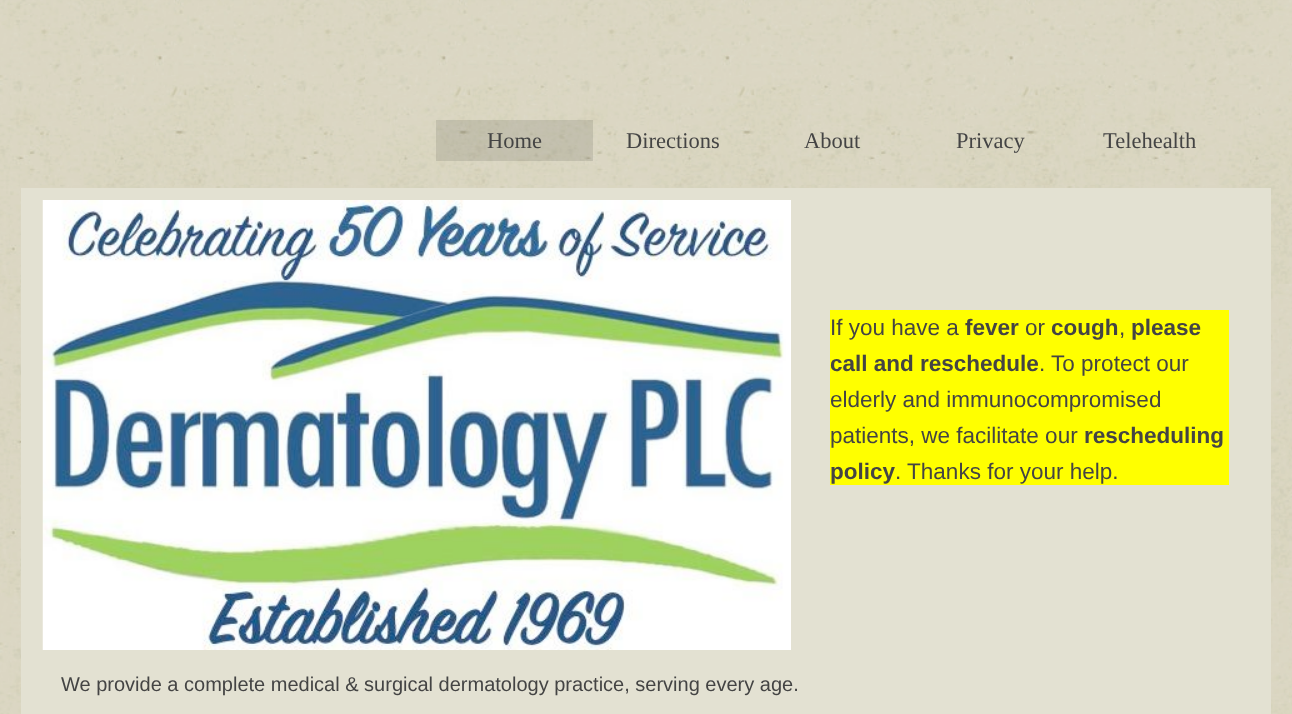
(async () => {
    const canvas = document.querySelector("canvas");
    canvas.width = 1292;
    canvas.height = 714;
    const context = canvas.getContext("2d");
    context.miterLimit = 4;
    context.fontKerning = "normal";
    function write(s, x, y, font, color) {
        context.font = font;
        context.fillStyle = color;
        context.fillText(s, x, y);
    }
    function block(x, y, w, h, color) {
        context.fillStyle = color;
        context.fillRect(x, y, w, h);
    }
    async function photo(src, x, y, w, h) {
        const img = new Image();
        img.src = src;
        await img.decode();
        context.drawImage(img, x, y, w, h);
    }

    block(0, 0, 1292, 714, "rgb(255, 255, 255)");
    await photo("media/1.png", 0, 0, 1292, 714);
    block(21, 188, 1250, 526, "rgb(227, 225, 210)");
    block(436, 120, 157, 41, "rgba(0, 0, 0, 0.1)");
    write("Home", 487, 148, "22.5px Liberation Serif", "rgb(68, 68, 68)");
    write("Directions", 626, 148, "22.5px Liberation Serif", "rgb(68, 68, 68)");
    write("About", 804, 148, "22.5px Liberation Serif", "rgb(68, 68, 68)");
    write("Privacy", 956, 148, "22.5px Liberation Serif", "rgb(68, 68, 68)");
    write("Telehealth", 1103, 148, "22.5px Liberation Serif", "rgb(68, 68, 68)");
    await photo("media/2.png", 42, 200, 749, 450);
    block(830, 310, 399, 175, "rgb(255, 255, 0)");
    write("If you have a", 830, 335, "22.5px Liberation Sans", "rgb(68, 68, 68)");
    write("fever", 965, 335, "bold 22.5px Liberation Sans", "rgb(68, 68, 68)");
    write("or", 1025, 335, "22.5px Liberation Sans", "rgb(68, 68, 68)");
    write("cough", 1051, 335, "bold 22.5px Liberation Sans", "rgb(68, 68, 68)");
    write(",", 1119, 335, "22.5px Liberation Sans", "rgb(68, 68, 68)");
    write("please", 1131, 335, "bold 22.5px Liberation Sans", "rgb(68, 68, 68)");
    write("call and reschedule", 830, 371, "bold 22.5px Liberation Sans", "rgb(68, 68, 68)");
    write(". To protect our", 1039, 371, "22.5px Liberation Sans", "rgb(68, 68, 68)");
    write("elderly and immunocompromised", 830, 407, "22.5px Liberation Sans", "rgb(68, 68, 68)");
    write("patients, we facilitate our", 830, 443, "22.5px Liberation Sans", "rgb(68, 68, 68)");
    write("rescheduling", 1084, 443, "bold 22.5px Liberation Sans", "rgb(68, 68, 68)");
    write("policy", 830, 479, "bold 22.5px Liberation Sans", "rgb(68, 68, 68)");
    write(". Thanks for your help.", 895, 479, "22.5px Liberation Sans", "rgb(68, 68, 68)");
    write("We provide a complete medical & surgical dermatology practice, serving every age.", 61, 691, "20px Liberation Sans", "rgb(68, 68, 68)");
})();
